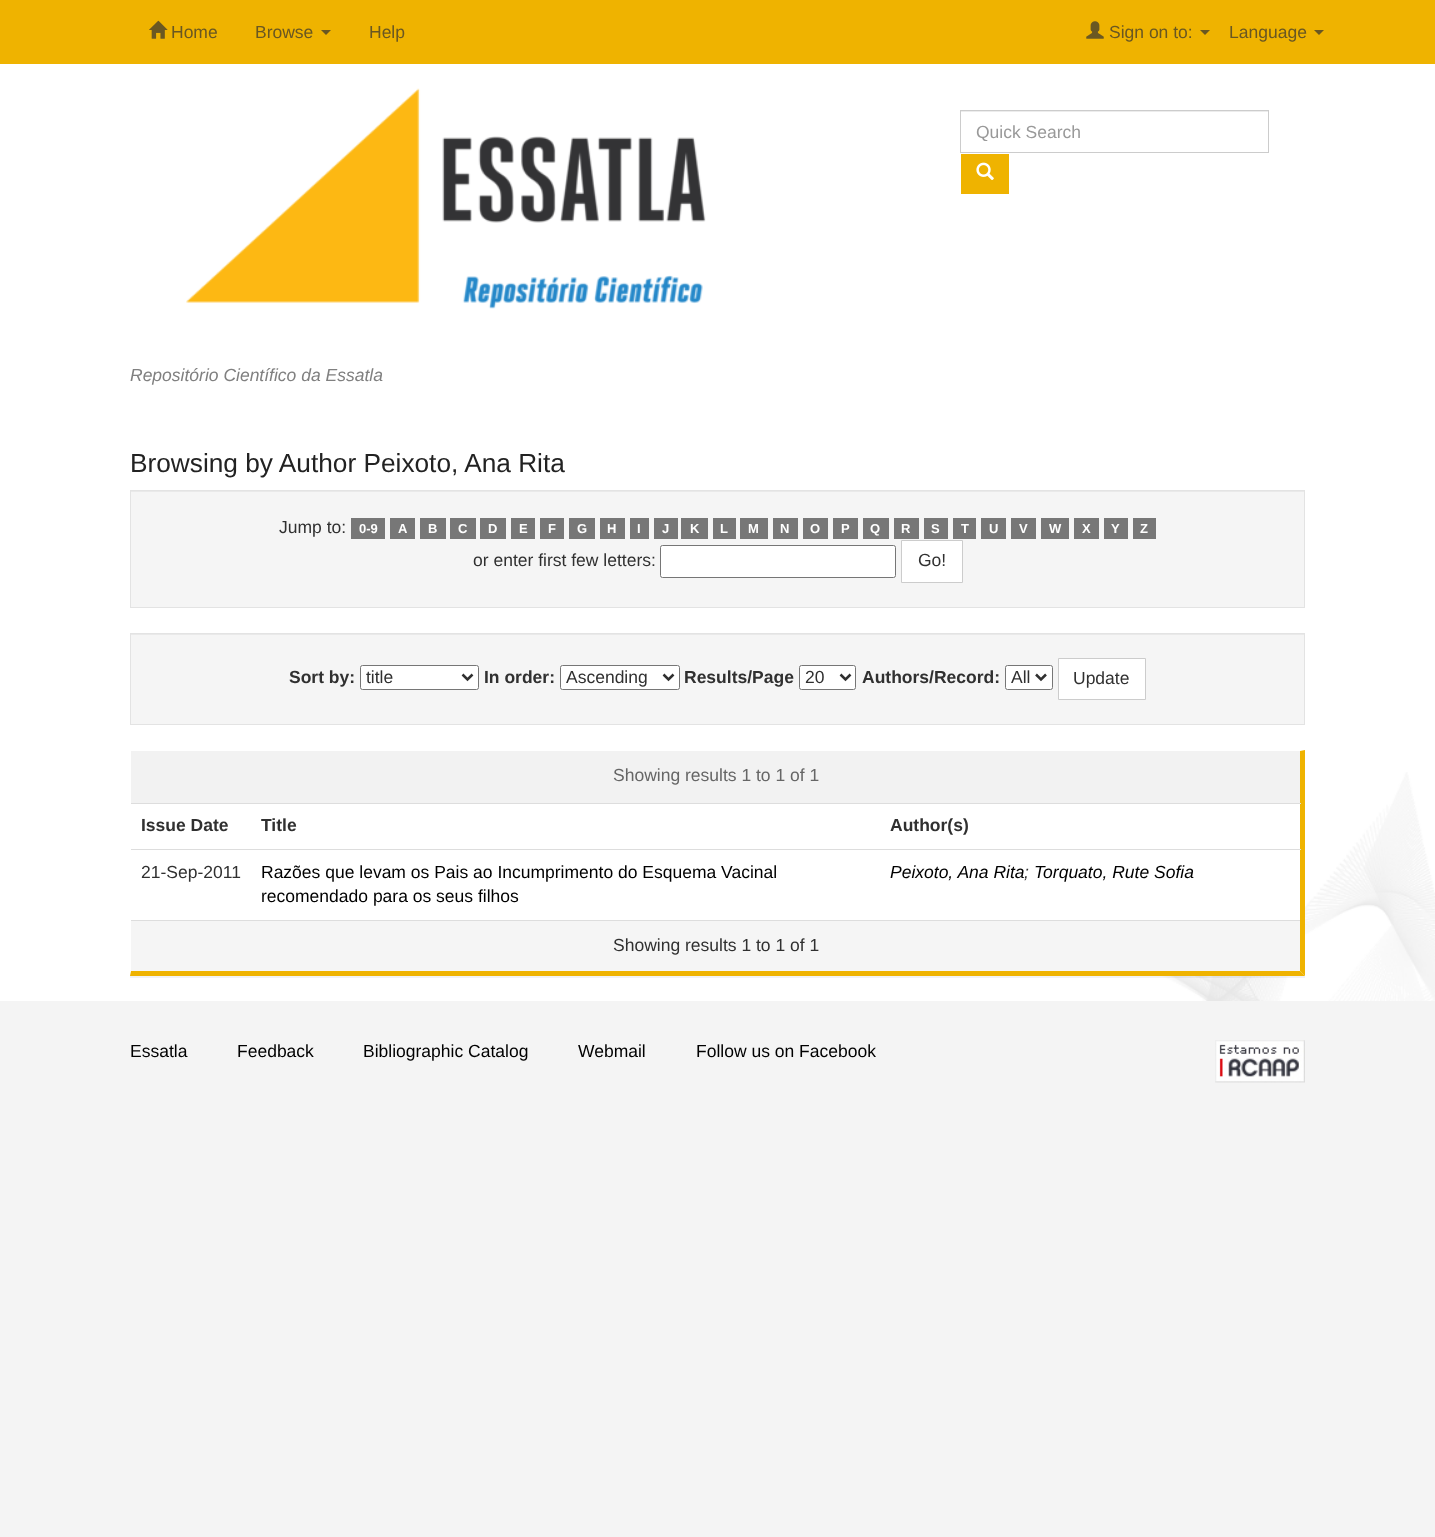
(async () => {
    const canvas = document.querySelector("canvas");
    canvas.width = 1435;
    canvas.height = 1537;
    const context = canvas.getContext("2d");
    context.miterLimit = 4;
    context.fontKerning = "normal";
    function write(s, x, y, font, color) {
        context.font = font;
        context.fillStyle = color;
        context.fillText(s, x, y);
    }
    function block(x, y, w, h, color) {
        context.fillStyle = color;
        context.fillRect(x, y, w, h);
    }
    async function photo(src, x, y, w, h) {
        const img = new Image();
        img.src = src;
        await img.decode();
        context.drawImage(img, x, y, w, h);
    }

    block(0, 0, 1435, 1537, "rgb(244, 244, 244)");
    block(0, 0, 1435, 64, "rgb(239, 179, 0)");
    await photo("media/1.png", 149, 20, 19, 19);
    write("Home", 171, 38, "17.5px Liberation Sans", "rgb(105, 87, 34)");
    write("Browse", 255, 38, "17.5px Liberation Sans", "rgb(105, 87, 34)");
    context.beginPath();
    context.moveTo(321, 30);
    context.lineTo(331, 30);
    context.lineTo(326, 35);
    context.closePath();
    context.fill();
    write("Help", 369, 38, "17.5px Liberation Sans", "rgb(105, 87, 34)");
    await photo("media/2.png", 1086, 21, 18, 18);
    write("Sign on to:", 1109, 38, "17.5px Liberation Sans", "rgb(105, 87, 34)");
    context.beginPath();
    context.moveTo(1200, 30);
    context.lineTo(1210, 30);
    context.lineTo(1205, 35);
    context.closePath();
    context.fill();
    write("Language", 1229, 38, "17.5px Liberation Sans", "rgb(105, 87, 34)");
    context.beginPath();
    context.moveTo(1314, 30);
    context.lineTo(1324, 30);
    context.lineTo(1319, 35);
    context.closePath();
    context.fill();
    block(0, 64, 1435, 937, "rgb(255, 255, 255)");
    await photo("media/3.png", 1060, 772, 375, 229);
    await photo("media/4.png", 186, 88, 520, 221);
    block(961, 111, 307, 1, "rgb(236, 236, 236)");
    context.strokeStyle = "rgb(204, 204, 204)";
    context.strokeRect(960.5, 110.5, 308, 42);
    context.save();
    context.beginPath();
    context.rect(976, 121, 277, 20);
    context.clip();
    write("Quick Search", 976, 138, "17.5px Liberation Sans", "rgb(153, 153, 153)");
    context.restore();
    block(961, 154, 48, 40, "rgb(239, 179, 0)");
    await photo("media/5.png", 976, 162, 18, 18);
    write("Repositório Científico da Essatla", 130, 381, "italic 17.5px Liberation Sans", "rgb(128, 128, 128)");
    write("Browsing by Author Peixoto, Ana Rita", 130, 472, "26.25px Liberation Sans", "rgb(34, 34, 34)");
    block(131, 492, 1173, 115, "rgb(245, 245, 245)");
    block(131, 491, 1173, 1, "rgb(233, 233, 233)");
    context.strokeStyle = "rgb(227, 227, 227)";
    context.strokeRect(130.5, 490.5, 1174, 117);
    write("Jump to:", 279, 533, "17.5px Liberation Sans", "rgb(48, 48, 48)");
    block(351, 518, 34, 21, "rgb(119, 119, 119)");
    write("0-9", 359, 533, "bold 13px Liberation Sans", "rgb(255, 255, 255)");
    block(390, 518, 25, 21, "rgb(119, 119, 119)");
    write("A", 398, 533, "bold 13px Liberation Sans", "rgb(255, 255, 255)");
    block(420, 518, 26, 21, "rgb(119, 119, 119)");
    write("B", 428, 533, "bold 13px Liberation Sans", "rgb(255, 255, 255)");
    block(450, 518, 26, 21, "rgb(119, 119, 119)");
    write("C", 458, 533, "bold 13px Liberation Sans", "rgb(255, 255, 255)");
    block(480, 518, 26, 21, "rgb(119, 119, 119)");
    write("D", 488, 533, "bold 13px Liberation Sans", "rgb(255, 255, 255)");
    block(511, 518, 24, 21, "rgb(119, 119, 119)");
    write("E", 519, 533, "bold 13px Liberation Sans", "rgb(255, 255, 255)");
    block(540, 518, 24, 21, "rgb(119, 119, 119)");
    write("F", 548, 533, "bold 13px Liberation Sans", "rgb(255, 255, 255)");
    block(569, 518, 26, 21, "rgb(119, 119, 119)");
    write("G", 577, 533, "bold 13px Liberation Sans", "rgb(255, 255, 255)");
    block(600, 518, 25, 21, "rgb(119, 119, 119)");
    write("H", 607, 533, "bold 13px Liberation Sans", "rgb(255, 255, 255)");
    block(630, 518, 19, 21, "rgb(119, 119, 119)");
    write("I", 637, 533, "bold 13px Liberation Sans", "rgb(255, 255, 255)");
    block(654, 518, 24, 21, "rgb(119, 119, 119)");
    write("J", 662, 533, "bold 13px Liberation Sans", "rgb(255, 255, 255)");
    block(681, 518, 27, 21, "rgb(119, 119, 119)");
    write("K", 690, 533, "bold 13px Liberation Sans", "rgb(255, 255, 255)");
    block(713, 518, 23, 21, "rgb(119, 119, 119)");
    write("L", 720, 533, "bold 13px Liberation Sans", "rgb(255, 255, 255)");
    block(740, 518, 28, 21, "rgb(119, 119, 119)");
    write("M", 748, 533, "bold 13px Liberation Sans", "rgb(255, 255, 255)");
    block(773, 518, 25, 21, "rgb(119, 119, 119)");
    write("N", 780, 533, "bold 13px Liberation Sans", "rgb(255, 255, 255)");
    block(803, 518, 25, 21, "rgb(119, 119, 119)");
    write("O", 810, 533, "bold 13px Liberation Sans", "rgb(255, 255, 255)");
    block(833, 518, 25, 21, "rgb(119, 119, 119)");
    write("P", 841, 533, "bold 13px Liberation Sans", "rgb(255, 255, 255)");
    block(863, 518, 26, 21, "rgb(119, 119, 119)");
    write("Q", 870, 533, "bold 13px Liberation Sans", "rgb(255, 255, 255)");
    block(894, 518, 25, 21, "rgb(119, 119, 119)");
    write("R", 901, 533, "bold 13px Liberation Sans", "rgb(255, 255, 255)");
    block(924, 518, 24, 21, "rgb(119, 119, 119)");
    write("S", 931, 533, "bold 13px Liberation Sans", "rgb(255, 255, 255)");
    block(953, 518, 23, 21, "rgb(119, 119, 119)");
    write("T", 961, 533, "bold 13px Liberation Sans", "rgb(255, 255, 255)");
    block(981, 518, 25, 21, "rgb(119, 119, 119)");
    write("U", 989, 533, "bold 13px Liberation Sans", "rgb(255, 255, 255)");
    block(1011, 518, 25, 21, "rgb(119, 119, 119)");
    write("V", 1019, 533, "bold 13px Liberation Sans", "rgb(255, 255, 255)");
    block(1041, 518, 28, 21, "rgb(119, 119, 119)");
    write("W", 1049, 533, "bold 13px Liberation Sans", "rgb(255, 255, 255)");
    block(1074, 518, 25, 21, "rgb(119, 119, 119)");
    write("X", 1082, 533, "bold 13px Liberation Sans", "rgb(255, 255, 255)");
    block(1104, 518, 24, 21, "rgb(119, 119, 119)");
    write("Y", 1111, 533, "bold 13px Liberation Sans", "rgb(255, 255, 255)");
    block(1133, 518, 23, 21, "rgb(119, 119, 119)");
    write("Z", 1140, 533, "bold 13px Liberation Sans", "rgb(255, 255, 255)");
    write("or enter first few letters:", 473, 566, "17.5px Liberation Sans", "rgb(48, 48, 48)");
    context.fillStyle = "rgb(255, 255, 255)";
    context.beginPath();
    context.roundRect(660.5, 545.5, 235, 32, 2);
    context.fill();
    context.strokeStyle = "rgb(118, 118, 118)";
    context.stroke();
    context.beginPath();
    context.rect(901.5, 540.5, 61, 42);
    context.fill();
    context.strokeStyle = "rgb(204, 204, 204)";
    context.stroke();
    write("Go!", 918, 566, "17.5px Liberation Sans", "rgb(48, 48, 48)");
    block(131, 635, 1173, 89, "rgb(245, 245, 245)");
    block(131, 634, 1173, 1, "rgb(233, 233, 233)");
    context.strokeStyle = "rgb(227, 227, 227)";
    context.strokeRect(130.5, 633.5, 1174, 91);
    write("Sort by:", 289, 683, "bold 17.5px Liberation Sans", "rgb(48, 48, 48)");
    context.fillStyle = "rgb(255, 255, 255)";
    context.beginPath();
    context.roundRect(360.5, 665.5, 118, 24, 2);
    context.fill();
    context.strokeStyle = "rgb(118, 118, 118)";
    context.stroke();
    context.beginPath();
    context.moveTo(462.5, 674.5);
    context.lineTo(467.5, 679.5);
    context.lineTo(472.5, 674.5);
    context.strokeStyle = "rgb(48, 48, 48)";
    context.lineWidth = 2.5;
    context.stroke();
    write("title", 366, 683, "17.5px Liberation Sans", "rgb(48, 48, 48)");
    write("In order:", 484, 683, "bold 17.5px Liberation Sans", "rgb(48, 48, 48)");
    context.fillStyle = "rgb(255, 255, 255)";
    context.beginPath();
    context.roundRect(560.5, 665.5, 119, 24, 2);
    context.fill();
    context.strokeStyle = "rgb(118, 118, 118)";
    context.lineWidth = 1;
    context.stroke();
    context.beginPath();
    context.moveTo(663.5, 674.5);
    context.lineTo(668.5, 679.5);
    context.lineTo(673.5, 674.5);
    context.strokeStyle = "rgb(48, 48, 48)";
    context.lineWidth = 2.5;
    context.stroke();
    write("Ascending", 566, 683, "17.5px Liberation Sans", "rgb(48, 48, 48)");
    write("Results/Page", 684, 683, "bold 17.5px Liberation Sans", "rgb(48, 48, 48)");
    context.fillStyle = "rgb(255, 255, 255)";
    context.beginPath();
    context.roundRect(799.5, 665.5, 56, 24, 2);
    context.fill();
    context.strokeStyle = "rgb(118, 118, 118)";
    context.lineWidth = 1;
    context.stroke();
    context.beginPath();
    context.moveTo(840.5, 674.5);
    context.lineTo(845.5, 679.5);
    context.lineTo(850.5, 674.5);
    context.strokeStyle = "rgb(48, 48, 48)";
    context.lineWidth = 2.5;
    context.stroke();
    write("20", 805, 683, "17.5px Liberation Sans", "rgb(48, 48, 48)");
    write("Authors/Record:", 862, 683, "bold 17.5px Liberation Sans", "rgb(48, 48, 48)");
    context.fillStyle = "rgb(255, 255, 255)";
    context.beginPath();
    context.roundRect(1005.5, 665.5, 47, 24, 2);
    context.fill();
    context.strokeStyle = "rgb(118, 118, 118)";
    context.lineWidth = 1;
    context.stroke();
    context.beginPath();
    context.moveTo(1036, 674.5);
    context.lineTo(1041, 679.5);
    context.lineTo(1046, 674.5);
    context.strokeStyle = "rgb(48, 48, 48)";
    context.lineWidth = 2.5;
    context.stroke();
    write("All", 1011, 683, "17.5px Liberation Sans", "rgb(48, 48, 48)");
    context.fillStyle = "rgb(255, 255, 255)";
    context.beginPath();
    context.rect(1058.5, 658.5, 87, 41);
    context.fill();
    context.strokeStyle = "rgb(204, 204, 204)";
    context.lineWidth = 1;
    context.stroke();
    write("Update", 1073, 684, "17.5px Liberation Sans", "rgb(48, 48, 48)");
    context.fillStyle = "rgba(0, 0, 0, 0.05)";
    context.filter = "blur(0.5px)";
    context.beginPath();
    context.rect(130, 751, 1175, 227);
    context.fill();
    context.filter = "none";
    block(130, 751, 1175, 225, "rgb(255, 255, 255)");
    context.fillStyle = "rgb(239, 179, 0)";
    context.beginPath();
    context.moveTo(1305, 750);
    context.lineTo(1305, 976);
    context.lineTo(1300, 971);
    context.lineTo(1300, 751);
    context.closePath();
    context.fill();
    context.beginPath();
    context.moveTo(1305, 976);
    context.lineTo(130, 976);
    context.lineTo(131, 971);
    context.lineTo(1300, 971);
    context.closePath();
    context.fill();
    block(131, 751, 1169, 52, "rgb(242, 242, 242)");
    write("Showing results 1 to 1 of 1", 613, 781, "17.5px Liberation Sans", "rgb(102, 102, 102)");
    write("Issue Date", 141, 831, "bold 17.5px Liberation Sans", "rgb(48, 48, 48)");
    write("Title", 261, 831, "bold 17.5px Liberation Sans", "rgb(48, 48, 48)");
    block(131, 803, 1170, 1, "rgb(221, 221, 221)");
    write("Author(s)", 890, 831, "bold 17.5px Liberation Sans", "rgb(48, 48, 48)");
    write("21-Sep-2011", 141, 878, "17.5px Liberation Sans", "rgb(48, 48, 48)");
    write("Razões que levam os Pais ao Incumprimento do Esquema Vacinal", 261, 878, "17.5px Liberation Sans", "rgb(0, 0, 0)");
    write("recomendado para os seus filhos", 261, 902, "17.5px Liberation Sans", "rgb(0, 0, 0)");
    block(131, 849, 1170, 1, "rgb(221, 221, 221)");
    write("Peixoto, Ana Rita", 890, 878, "italic 17.5px Liberation Sans", "rgb(0, 0, 0)");
    write(";", 1024, 878, "italic 17.5px Liberation Sans", "rgb(48, 48, 48)");
    write("Torquato, Rute Sofia", 1034, 878, "italic 17.5px Liberation Sans", "rgb(0, 0, 0)");
    block(131, 921, 1169, 50, "rgb(245, 245, 245)");
    block(131, 920, 1169, 1, "rgb(221, 221, 221)");
    write("Showing results 1 to 1 of 1", 613, 951, "17.5px Liberation Sans", "rgb(48, 48, 48)");
    write("Essatla", 130, 1057, "17.5px Liberation Sans", "rgb(0, 0, 0)");
    write("Feedback", 237, 1057, "17.5px Liberation Sans", "rgb(0, 0, 0)");
    write("Bibliographic Catalog", 363, 1057, "17.5px Liberation Sans", "rgb(0, 0, 0)");
    write("Webmail", 578, 1057, "17.5px Liberation Sans", "rgb(0, 0, 0)");
    write("Follow us on Facebook", 696, 1057, "17.5px Liberation Sans", "rgb(0, 0, 0)");
    await photo("media/6.png", 1215, 1040, 90, 43);
})();
